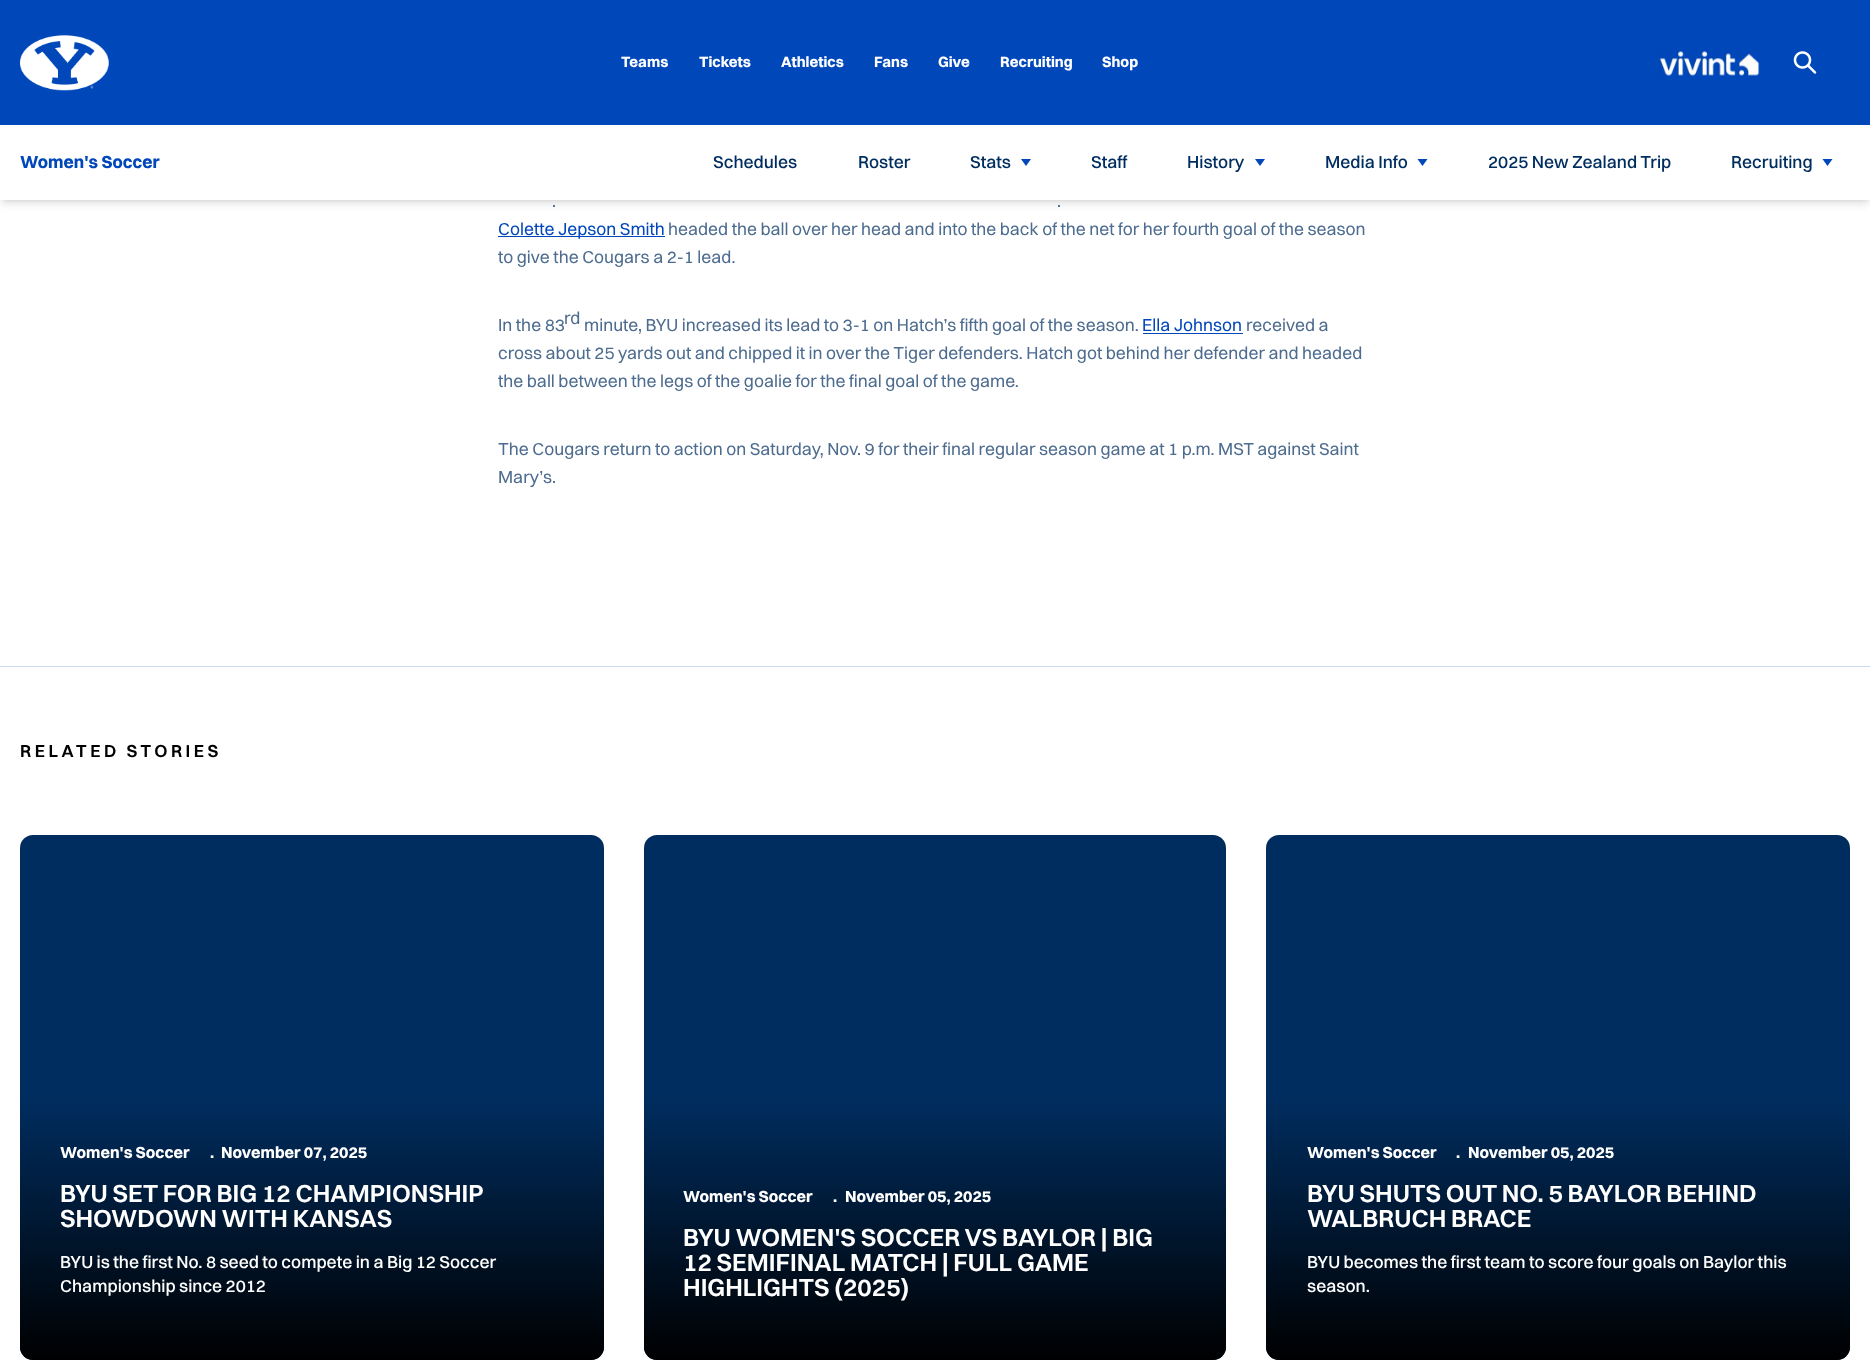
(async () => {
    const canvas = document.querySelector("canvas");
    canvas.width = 1870;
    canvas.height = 1370;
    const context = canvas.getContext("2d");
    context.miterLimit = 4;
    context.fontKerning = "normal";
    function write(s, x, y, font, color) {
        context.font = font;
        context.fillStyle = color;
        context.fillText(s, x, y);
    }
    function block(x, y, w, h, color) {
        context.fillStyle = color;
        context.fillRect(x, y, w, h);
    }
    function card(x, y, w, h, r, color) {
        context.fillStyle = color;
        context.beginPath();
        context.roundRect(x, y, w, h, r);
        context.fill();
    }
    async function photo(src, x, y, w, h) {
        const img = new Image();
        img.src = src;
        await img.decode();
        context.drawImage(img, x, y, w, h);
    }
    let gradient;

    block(0, 0, 1870, 1370, "rgb(255, 255, 255)");
    context.fillStyle = "rgba(0, 0, 0, 0.1)";
    context.filter = "blur(2.5px)";
    context.beginPath();
    context.rect(3, 130, 1865, 70);
    context.fill();
    context.filter = "none";
    context.filter = "blur(4px)";
    context.beginPath();
    context.rect(1, 131, 1868, 73);
    context.fill();
    context.filter = "none";
    block(0, 0, 1870, 125, "rgb(0, 71, 186)");
    await photo("media/1.png", 20, 35, 89, 56);
    write("Teams", 621, 67, "bold 15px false", "rgb(255, 255, 255)");
    write("Tickets", 699, 67, "bold 15px false", "rgb(255, 255, 255)");
    write("Athletics", 781, 67, "bold 15px false", "rgb(255, 255, 255)");
    write("Fans", 874, 67, "bold 15px false", "rgb(255, 255, 255)");
    write("Give", 938, 67, "bold 15px false", "rgb(255, 255, 255)");
    write("Recruiting", 1000, 67, "bold 15px false", "rgb(255, 255, 255)");
    write("Shop", 1102, 67, "bold 15px false", "rgb(255, 255, 255)");
    await photo("media/2.png", 1659, 50, 101, 26);
    await photo("media/3.png", 1793, 51, 24, 23);
    block(0, 125, 1870, 75, "rgb(255, 255, 255)");
    write("Women's Soccer", 20, 168, "bold 17.5px false", "rgb(0, 71, 186)");
    write("Schedules", 713, 168, "500 17.5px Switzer", "rgb(0, 45, 95)");
    write("Roster", 858, 168, "500 17.5px Switzer", "rgb(0, 45, 95)");
    write("Stats", 970, 168, "500 17.5px Switzer", "rgb(0, 45, 95)");
    context.fillStyle = "rgb(0, 71, 186)";
    context.beginPath();
    context.moveTo(1021, 159);
    context.lineTo(1031, 159);
    context.lineTo(1026, 166);
    context.closePath();
    context.fill();
    write("Staff", 1091, 168, "500 17.5px Switzer", "rgb(0, 45, 95)");
    write("History", 1187, 168, "500 17.5px Switzer", "rgb(0, 45, 95)");
    context.fillStyle = "rgb(0, 71, 186)";
    context.beginPath();
    context.moveTo(1255, 159);
    context.lineTo(1265, 159);
    context.lineTo(1260, 166);
    context.closePath();
    context.fill();
    write("Media Info", 1325, 168, "500 17.5px Switzer", "rgb(0, 45, 95)");
    context.fillStyle = "rgb(0, 71, 186)";
    context.beginPath();
    context.moveTo(1417.5, 159);
    context.lineTo(1427.5, 159);
    context.lineTo(1422.5, 166);
    context.closePath();
    context.fill();
    write("2025 New Zealand Trip", 1488, 168, "500 17.5px Switzer", "rgb(0, 45, 95)");
    write("Recruiting", 1731, 168, "500 17.5px Switzer", "rgb(0, 45, 95)");
    context.fillStyle = "rgb(0, 71, 186)";
    context.beginPath();
    context.moveTo(1822.5, 159);
    context.lineTo(1832.5, 159);
    context.lineTo(1827.5, 166);
    context.closePath();
    context.fill();
    write(".", 552, 207, "17.5px false", "rgb(77, 108, 143)");
    write(".", 1057, 207, "17.5px false", "rgb(77, 108, 143)");
    block(498, 236, 167, 1, "rgb(0, 71, 186)");
    write("Colette Jepson Smith", 498, 235, "17.5px false", "rgb(0, 71, 186)");
    write("headed the ball over her head and into the back of the net for her fourth goal of the season", 668, 235, "17.5px false", "rgb(77, 108, 143)");
    write("to give the Cougars a 2-1 lead.", 498, 263, "17.5px false", "rgb(77, 108, 143)");
    write("In the 83", 498, 331, "17.5px false", "rgb(77, 108, 143)");
    write("rd", 564, 324, "17.5px false", "rgb(77, 108, 143)");
    write("minute, BYU increased its lead to 3-1 on Hatch’s fifth goal of the season.", 584, 331, "17.5px false", "rgb(77, 108, 143)");
    write("Ella Johnson", 1142, 331, "17.5px false", "rgb(0, 71, 186)");
    block(1143, 333, 100, 1, "rgb(0, 71, 186)");
    write("received a", 1246, 331, "17.5px false", "rgb(77, 108, 143)");
    write("cross about 25 yards out and chipped it in over the Tiger defenders. Hatch got behind her defender and headed", 498, 359, "17.5px false", "rgb(77, 108, 143)");
    write("the ball between the legs of the goalie for the final goal of the game.", 498, 387, "17.5px false", "rgb(77, 108, 143)");
    write("The Cougars return to action on Saturday, Nov. 9 for their final regular season game at 1 p.m. MST against Saint", 498, 455, "17.5px false", "rgb(77, 108, 143)");
    write("Mary’s.", 498, 483, "17.5px false", "rgb(77, 108, 143)");
    block(0, 666, 1870, 1, "rgb(204, 218, 241)");
    context.letterSpacing = "3.5px";
    write("RELATED STORIES", 20, 757, "600 17.5px Switzer", "rgb(0, 0, 0)");
    card(20, 835, 584, 525, 13, "rgb(0, 45, 95)");
    gradient = context.createLinearGradient(312, 1360, 312, 1098);
    gradient.addColorStop(0, "rgb(0, 0, 0)");
    gradient.addColorStop(1, "rgba(0, 0, 0, 0)");
    context.fillStyle = gradient;
    context.beginPath();
    context.roundRect(20, 1098, 584, 262, [0, 0, 13, 13]);
    context.fill();
    context.letterSpacing = "0px";
    write("Women's Soccer", 60, 1158, "bold 16.25px false", "rgb(255, 255, 255)");
    write(".", 210, 1158, "bold 16.25px false", "rgb(255, 255, 255)");
    write("November 07, 2025", 221, 1158, "bold 16.25px false", "rgb(255, 255, 255)");
    write("BYU SET FOR BIG 12 CHAMPIONSHIP", 60, 1202, "600 25px Switzer", "rgb(255, 255, 255)");
    write("SHOWDOWN WITH KANSAS", 60, 1227, "600 25px Switzer", "rgb(255, 255, 255)");
    write("BYU is the first No. 8 seed to compete in a Big 12 Soccer", 60, 1268, "500 17.5px Switzer", "rgb(255, 255, 255)");
    write("Championship since 2012", 60, 1292, "500 17.5px Switzer", "rgb(255, 255, 255)");
    card(644, 835, 582, 525, 13, "rgb(0, 45, 95)");
    gradient = context.createLinearGradient(935, 1360, 935, 1098);
    gradient.addColorStop(0, "rgb(0, 0, 0)");
    gradient.addColorStop(1, "rgba(0, 0, 0, 0)");
    context.fillStyle = gradient;
    context.beginPath();
    context.roundRect(644, 1098, 582, 262, [0, 0, 13, 13]);
    context.fill();
    write("Women's Soccer", 683, 1202, "bold 16.25px false", "rgb(255, 255, 255)");
    write(".", 833, 1202, "bold 16.25px false", "rgb(255, 255, 255)");
    write("November 05, 2025", 845, 1202, "bold 16.25px false", "rgb(255, 255, 255)");
    write("BYU WOMEN'S SOCCER VS BAYLOR | BIG", 683, 1246, "600 25px Switzer", "rgb(255, 255, 255)");
    write("12 SEMIFINAL MATCH | FULL GAME", 683, 1271, "600 25px Switzer", "rgb(255, 255, 255)");
    write("HIGHLIGHTS (2025)", 683, 1296, "600 25px Switzer", "rgb(255, 255, 255)");
    card(1266, 835, 584, 525, 13, "rgb(0, 45, 95)");
    gradient = context.createLinearGradient(1558, 1360, 1558, 1098);
    gradient.addColorStop(0, "rgb(0, 0, 0)");
    gradient.addColorStop(1, "rgba(0, 0, 0, 0)");
    context.fillStyle = gradient;
    context.beginPath();
    context.roundRect(1266, 1098, 584, 262, [0, 0, 13, 13]);
    context.fill();
    write("Women's Soccer", 1307, 1158, "bold 16.25px false", "rgb(255, 255, 255)");
    write(".", 1456, 1158, "bold 16.25px false", "rgb(255, 255, 255)");
    write("November 05, 2025", 1468, 1158, "bold 16.25px false", "rgb(255, 255, 255)");
    write("BYU SHUTS OUT NO. 5 BAYLOR BEHIND", 1307, 1202, "600 25px Switzer", "rgb(255, 255, 255)");
    write("WALBRUCH BRACE", 1307, 1227, "600 25px Switzer", "rgb(255, 255, 255)");
    write("BYU becomes the first team to score four goals on Baylor this", 1307, 1268, "500 17.5px Switzer", "rgb(255, 255, 255)");
    write("season.", 1307, 1292, "500 17.5px Switzer", "rgb(255, 255, 255)");
})();
